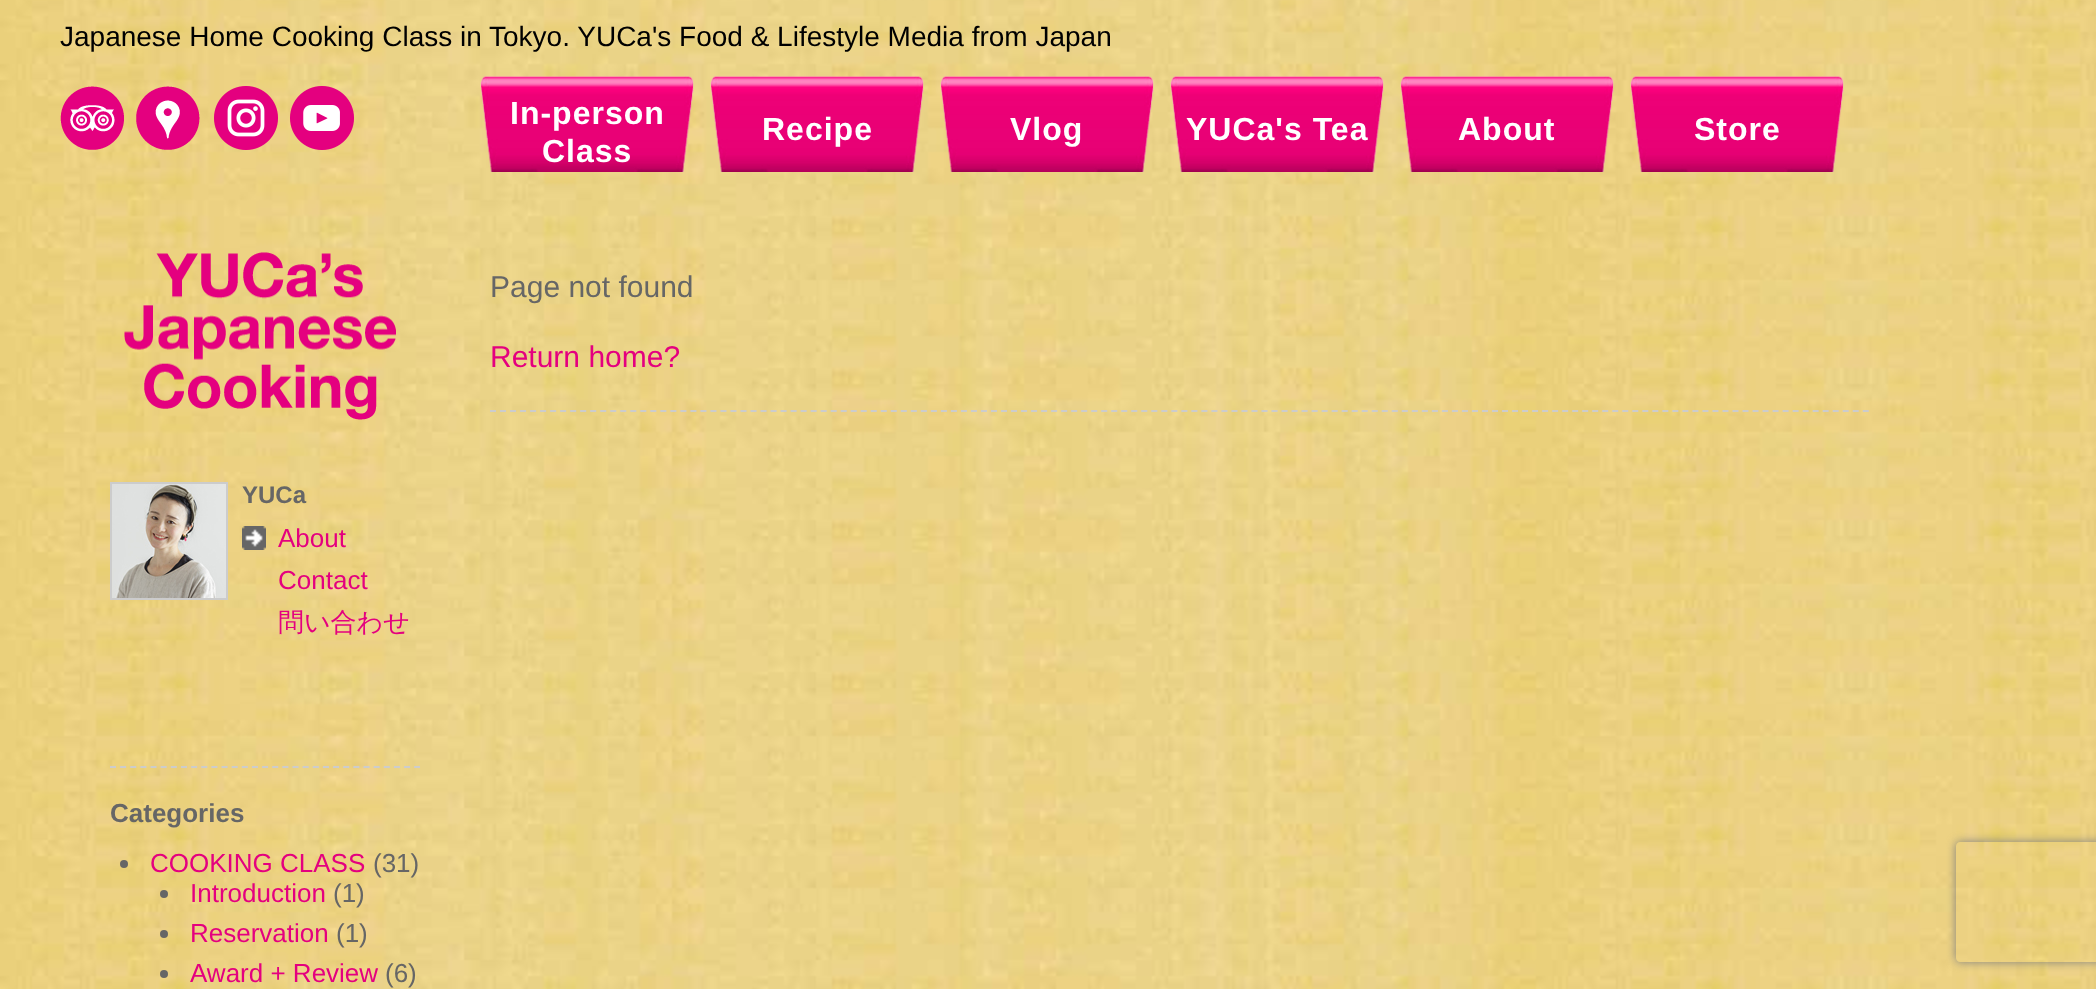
(async () => {
    const canvas = document.querySelector("canvas");
    canvas.width = 2096;
    canvas.height = 989;
    const context = canvas.getContext("2d");
    context.miterLimit = 4;
    context.fontKerning = "normal";
    function write(s, x, y, font, color) {
        context.font = font;
        context.fillStyle = color;
        context.fillText(s, x, y);
    }
    function block(x, y, w, h, color) {
        context.fillStyle = color;
        context.fillRect(x, y, w, h);
    }
    async function photo(src, x, y, w, h) {
        const img = new Image();
        img.src = src;
        await img.decode();
        context.drawImage(img, x, y, w, h);
    }

    block(0, 0, 2096, 989, "rgb(255, 255, 255)");
    await photo("media/1.png", 0, 0, 2096, 989);
    write("Japanese Home Cooking Class in Tokyo. YUCa's Food & Lifestyle Media from Japan", 60, 46, "28px Liberation Sans", "rgb(0, 0, 0)");
    await photo("media/2.png", 60, 86, 64, 64);
    await photo("media/3.png", 136, 86, 64, 64);
    await photo("media/4.png", 214, 86, 64, 64);
    await photo("media/5.png", 290, 86, 64, 64);
    await photo("media/6.png", 480, 75, 214, 97);
    context.letterSpacing = "1px";
    write("In-person", 510, 124, "bold 32px Liberation Sans", "rgb(255, 255, 255)");
    write("Class", 542, 162, "bold 32px Liberation Sans", "rgb(255, 255, 255)");
    await photo("media/7.png", 710, 75, 214, 97);
    write("Recipe", 762, 140, "bold 32px Liberation Sans", "rgb(255, 255, 255)");
    await photo("media/8.png", 940, 75, 214, 97);
    write("Vlog", 1010, 140, "bold 32px Liberation Sans", "rgb(255, 255, 255)");
    await photo("media/9.png", 1170, 75, 214, 97);
    write("YUCa's Tea", 1186, 140, "bold 32px Liberation Sans", "rgb(255, 255, 255)");
    await photo("media/10.png", 1400, 75, 214, 97);
    write("About", 1458, 140, "bold 32px Liberation Sans", "rgb(255, 255, 255)");
    await photo("media/11.png", 1630, 75, 214, 97);
    write("Store", 1694, 140, "bold 32px Liberation Sans", "rgb(255, 255, 255)");
    await photo("media/12.png", 124, 252, 272, 168);
    context.beginPath();
    context.moveTo(490, 411);
    context.lineTo(1870, 411);
    context.strokeStyle = "rgb(204, 204, 204)";
    context.lineWidth = 2;
    context.setLineDash([6, 4.02]);
    context.stroke();
    context.letterSpacing = "0px";
    write("Page not found", 490, 297, "30px Liberation Sans", "rgb(102, 102, 102)");
    write("Return home?", 490, 367, "30px Liberation Sans", "rgb(228, 0, 127)");
    context.beginPath();
    context.moveTo(110, 767);
    context.lineTo(420, 767);
    context.setLineDash([6, 4.14]);
    context.stroke();
    context.setLineDash([]);
    context.strokeRect(111, 483, 116, 116);
    await photo("media/13.png", 112, 484, 114, 114);
    write("YUCa", 242, 503, "bold 24px Liberation Sans", "rgb(102, 102, 102)");
    await photo("media/14.png", 242, 526, 24, 24);
    write("About", 278, 547, "26px Liberation Sans", "rgb(228, 0, 127)");
    write("Contact", 278, 589, "26px Liberation Sans", "rgb(228, 0, 127)");
    write("問い合わせ", 278, 631, "500 26px WenQuanYi Zen Hei", "rgb(228, 0, 127)");
    write("Categories", 110, 822, "bold 26px Liberation Sans", "rgb(102, 102, 102)");
    context.beginPath();
    context.arc(124, 864, 4, 0, Math.PI * 2);
    context.fill();
    write("COOKING CLASS", 150, 872, "26px Liberation Sans", "rgb(228, 0, 127)");
    write("(31)", 373, 872, "26px Liberation Sans", "rgb(102, 102, 102)");
    context.beginPath();
    context.arc(164, 894, 4, 0, Math.PI * 2);
    context.fill();
    write("Introduction", 190, 902, "26px Liberation Sans", "rgb(228, 0, 127)");
    write("(1)", 333, 902, "26px Liberation Sans", "rgb(102, 102, 102)");
    context.beginPath();
    context.arc(164, 934, 4, 0, Math.PI * 2);
    context.fill();
    write("Reservation", 190, 942, "26px Liberation Sans", "rgb(228, 0, 127)");
    write("(1)", 336, 942, "26px Liberation Sans", "rgb(102, 102, 102)");
    context.beginPath();
    context.arc(164, 974, 4, 0, Math.PI * 2);
    context.fill();
    write("Award + Review", 190, 982, "26px Liberation Sans", "rgb(228, 0, 127)");
    write("(6)", 385, 982, "26px Liberation Sans", "rgb(102, 102, 102)");
    context.save();
    context.beginPath();
    context.moveTo(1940, 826);
    context.lineTo(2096, 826);
    context.lineTo(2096, 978);
    context.lineTo(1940, 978);
    context.closePath();
    context.moveTo(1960, 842);
    context.lineTo(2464, 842);
    context.bezierCurveTo(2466, 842, 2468, 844, 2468, 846);
    context.lineTo(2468, 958);
    context.bezierCurveTo(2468, 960, 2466, 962, 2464, 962);
    context.lineTo(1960, 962);
    context.bezierCurveTo(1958, 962, 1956, 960, 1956, 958);
    context.lineTo(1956, 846);
    context.bezierCurveTo(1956, 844, 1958, 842, 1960, 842);
    context.closePath();
    context.clip("evenodd");
    context.fillStyle = "rgb(128, 128, 128)";
    context.filter = "blur(5px)";
    context.beginPath();
    context.roundRect(1956, 842, 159, 120, 4);
    context.fill();
    context.filter = "none";
    context.restore();
})();
